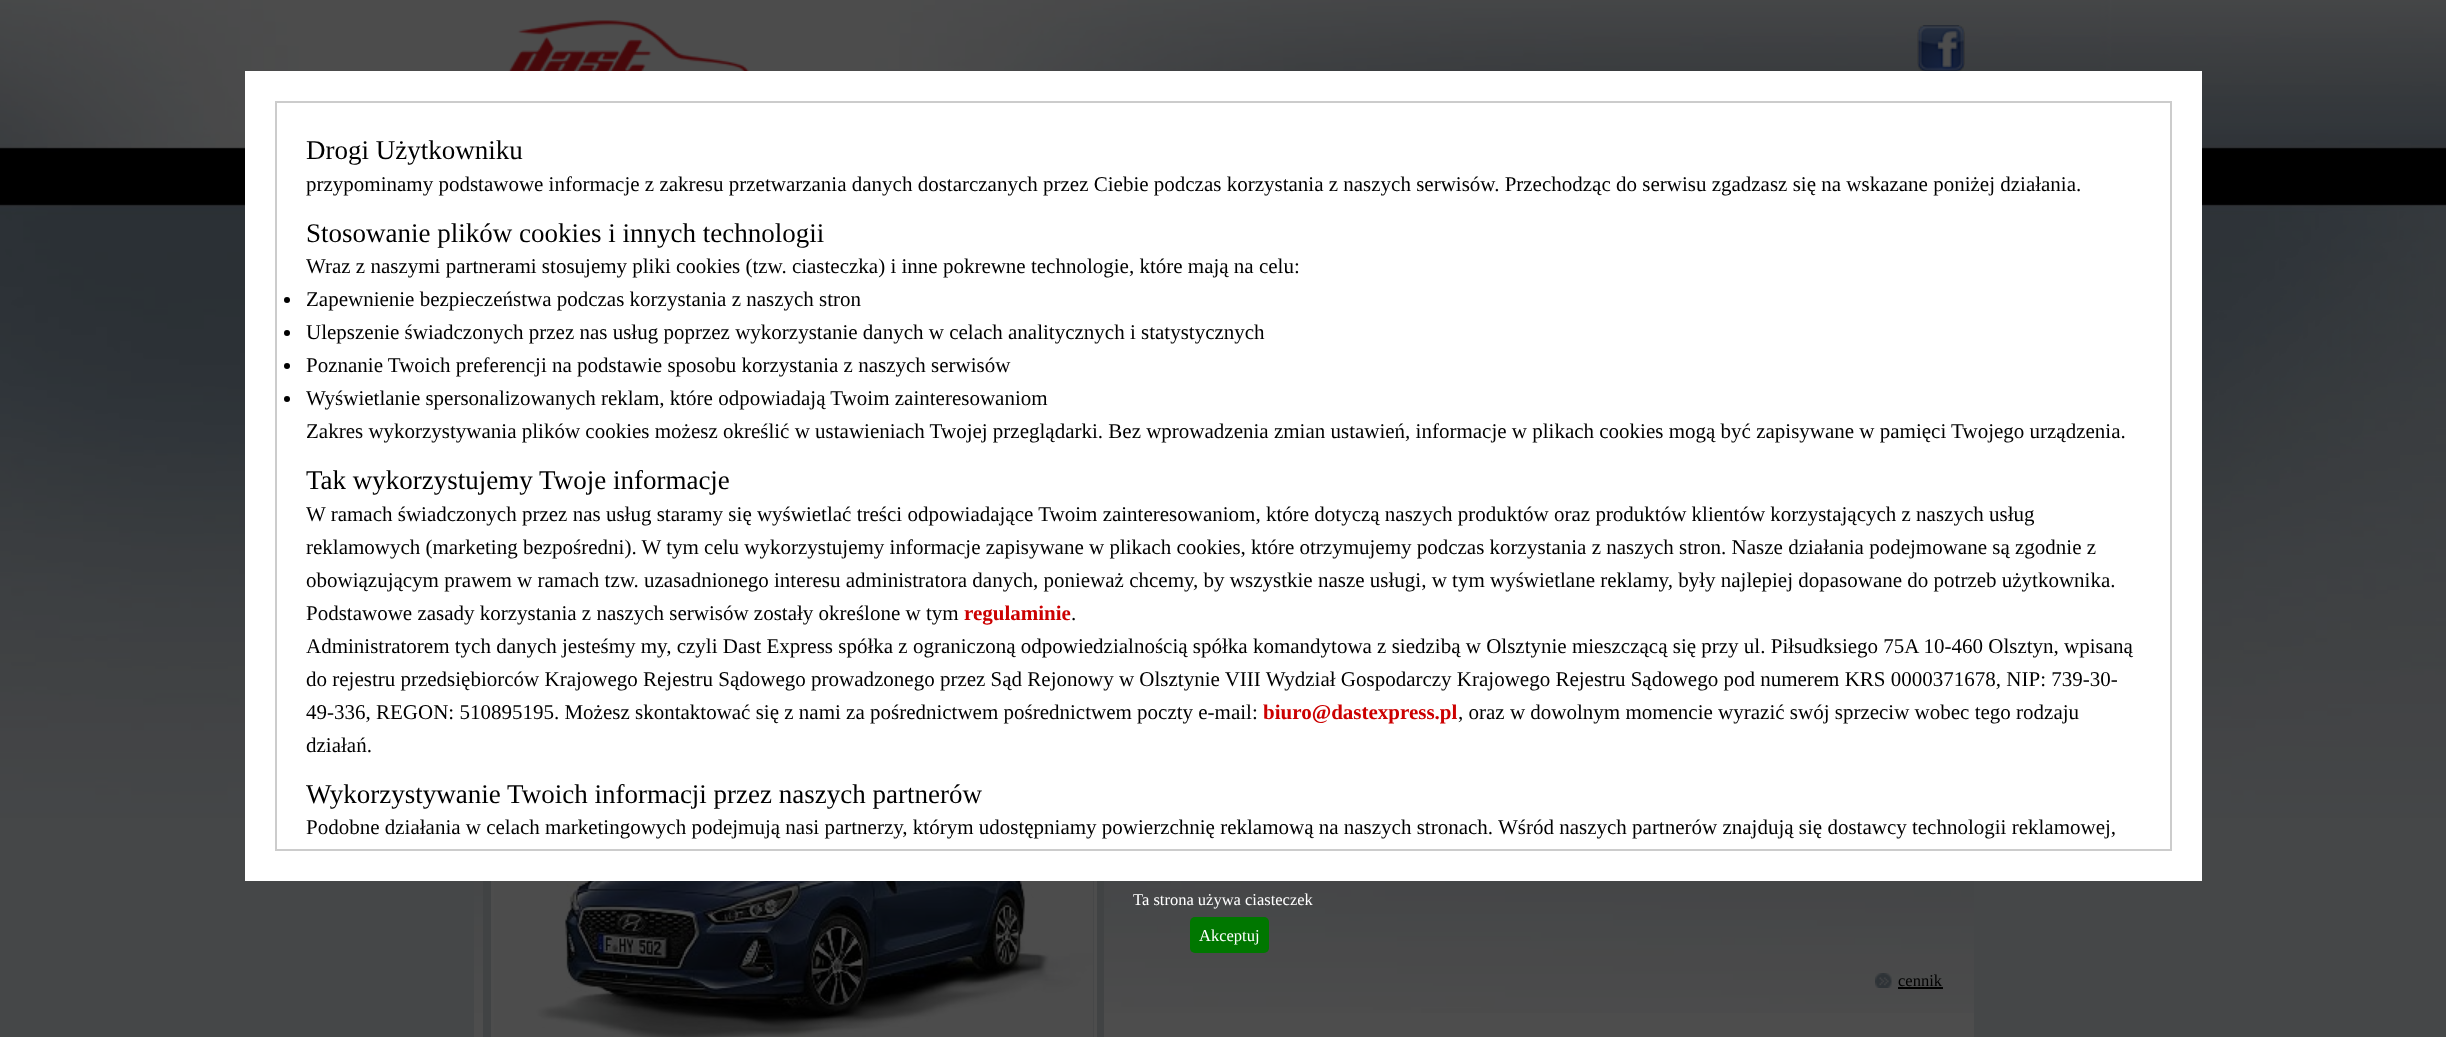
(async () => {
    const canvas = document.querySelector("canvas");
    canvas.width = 2446;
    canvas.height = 1037;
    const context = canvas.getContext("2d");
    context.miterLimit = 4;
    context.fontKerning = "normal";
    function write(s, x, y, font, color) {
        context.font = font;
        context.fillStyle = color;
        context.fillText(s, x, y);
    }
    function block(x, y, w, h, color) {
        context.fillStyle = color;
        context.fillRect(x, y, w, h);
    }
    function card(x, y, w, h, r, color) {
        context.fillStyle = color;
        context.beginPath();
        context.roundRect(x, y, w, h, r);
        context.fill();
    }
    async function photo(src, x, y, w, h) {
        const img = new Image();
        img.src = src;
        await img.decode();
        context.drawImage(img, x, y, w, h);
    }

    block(0, 0, 2446, 1037, "rgb(69, 71, 72)");
    await photo("media/1.png", 0, 0, 2446, 818);
    block(474, 1013, 1500, 24, "rgb(77, 77, 77)");
    await photo("media/4.png", 474, 881, 1500, 132);
    block(483, 881, 621, 156, "rgb(65, 67, 68)");
    context.strokeStyle = "rgb(77, 77, 77)";
    context.lineWidth = 3;
    context.strokeRect(492.5, 667.5, 603, 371);
    block(245, 71, 1957, 810, "rgb(255, 255, 255)");
    context.strokeStyle = "rgb(204, 204, 204)";
    context.lineWidth = 2;
    context.strokeRect(276, 102, 1895, 748);
    write("Drogi Użytkowniku", 306, 159, "27px Liberation Serif", "rgb(0, 0, 0)");
    write("przypominamy podstawowe informacje z zakresu przetwarzania danych dostarczanych przez Ciebie podczas korzystania z naszych serwisów. Przechodząc do serwisu zgadzasz się na wskazane poniżej działania.", 306, 191, "21px Liberation Serif", "rgb(0, 0, 0)");
    write("Stosowanie plików cookies i innych technologii", 306, 242, "27px Liberation Serif", "rgb(0, 0, 0)");
    write("Wraz z naszymi partnerami stosujemy pliki cookies (tzw. ciasteczka) i inne pokrewne technologie, które mają na celu:", 306, 273, "21px Liberation Serif", "rgb(0, 0, 0)");
    context.beginPath();
    context.arc(287, 300, 3, 0, Math.PI * 2);
    context.fill();
    write("Zapewnienie bezpieczeństwa podczas korzystania z naszych stron", 306, 306, "21px Liberation Serif", "rgb(0, 0, 0)");
    context.beginPath();
    context.arc(287, 333, 3, 0, Math.PI * 2);
    context.fill();
    write("Ulepszenie świadczonych przez nas usług poprzez wykorzystanie danych w celach analitycznych i statystycznych", 306, 339, "21px Liberation Serif", "rgb(0, 0, 0)");
    context.beginPath();
    context.arc(287, 366, 3, 0, Math.PI * 2);
    context.fill();
    write("Poznanie Twoich preferencji na podstawie sposobu korzystania z naszych serwisów", 306, 372, "21px Liberation Serif", "rgb(0, 0, 0)");
    context.beginPath();
    context.arc(287, 399, 3, 0, Math.PI * 2);
    context.fill();
    write("Wyświetlanie spersonalizowanych reklam, które odpowiadają Twoim zainteresowaniom", 306, 405, "21px Liberation Serif", "rgb(0, 0, 0)");
    write("Zakres wykorzystywania plików cookies możesz określić w ustawieniach Twojej przeglądarki. Bez wprowadzenia zmian ustawień, informacje w plikach cookies mogą być zapisywane w pamięci Twojego urządzenia.", 306, 438, "21px Liberation Serif", "rgb(0, 0, 0)");
    write("Tak wykorzystujemy Twoje informacje", 306, 489, "27px Liberation Serif", "rgb(0, 0, 0)");
    write("W ramach świadczonych przez nas usług staramy się wyświetlać treści odpowiadające Twoim zainteresowaniom, które dotyczą naszych produktów oraz produktów klientów korzystających z naszych usług", 306, 521, "21px Liberation Serif", "rgb(0, 0, 0)");
    write("reklamowych (marketing bezpośredni). W tym celu wykorzystujemy informacje zapisywane w plikach cookies, które otrzymujemy podczas korzystania z naszych stron. Nasze działania podejmowane są zgodnie z", 306, 554, "21px Liberation Serif", "rgb(0, 0, 0)");
    write("obowiązującym prawem w ramach tzw. uzasadnionego interesu administratora danych, ponieważ chcemy, by wszystkie nasze usługi, w tym wyświetlane reklamy, były najlepiej dopasowane do potrzeb użytkownika.", 306, 587, "21px Liberation Serif", "rgb(0, 0, 0)");
    write("Podstawowe zasady korzystania z naszych serwisów zostały określone w tym", 306, 620, "21px Liberation Serif", "rgb(0, 0, 0)");
    write("regulaminie", 964, 620, "bold 21px Liberation Serif", "rgb(204, 0, 0)");
    write(".", 1071, 620, "21px Liberation Serif", "rgb(0, 0, 0)");
    write("Administratorem tych danych jesteśmy my, czyli Dast Express spółka z ograniczoną odpowiedzialnością spółka komandytowa z siedzibą w Olsztynie mieszczącą się przy ul. Piłsudksiego 75A 10-460 Olsztyn, wpisaną", 306, 653, "21px Liberation Serif", "rgb(0, 0, 0)");
    write("do rejestru przedsiębiorców Krajowego Rejestru Sądowego prowadzonego przez Sąd Rejonowy w Olsztynie VIII Wydział Gospodarczy Krajowego Rejestru Sądowego pod numerem KRS 0000371678, NIP: 739-30-", 306, 686, "21px Liberation Serif", "rgb(0, 0, 0)");
    write("49-336, REGON: 510895195. Możesz skontaktować się z nami za pośrednictwem pośrednictwem poczty e-mail:", 306, 719, "21px Liberation Serif", "rgb(0, 0, 0)");
    write("biuro@dastexpress.pl", 1263, 719, "bold 21px Liberation Serif", "rgb(204, 0, 0)");
    write(", oraz w dowolnym momencie wyrazić swój sprzeciw wobec tego rodzaju", 1458, 719, "21px Liberation Serif", "rgb(0, 0, 0)");
    write("działań.", 306, 752, "21px Liberation Serif", "rgb(0, 0, 0)");
    write("Wykorzystywanie Twoich informacji przez naszych partnerów", 306, 803, "27px Liberation Serif", "rgb(0, 0, 0)");
    write("Podobne działania w celach marketingowych podejmują nasi partnerzy, którym udostępniamy powierzchnię reklamową na naszych stronach. Wśród naszych partnerów znajdują się dostawcy technologii reklamowej,", 306, 834, "21px Liberation Serif", "rgb(0, 0, 0)");
    write("Ta strona używa ciasteczek", 1133, 905, "16.5px Liberation Serif", "rgb(255, 255, 255)");
    card(1190, 917, 79, 36, 5, "rgb(0, 119, 0)");
    write("Akceptuj", 1199, 941, "16.5px Liberation Serif", "rgb(255, 255, 255)");
    await photo("media/2.png", 496, 20, 254, 51);
    await photo("media/3.png", 1917, 25, 48, 46);
    await photo("media/5.png", 494, 881, 600, 156);
    await photo("media/6.png", 1875, 973, 17, 15);
    write("cennik", 1898, 986, "16.5px Liberation Serif", "rgb(0, 0, 0)");
    block(1898, 987, 45, 2, "rgb(0, 0, 0)");
})();
